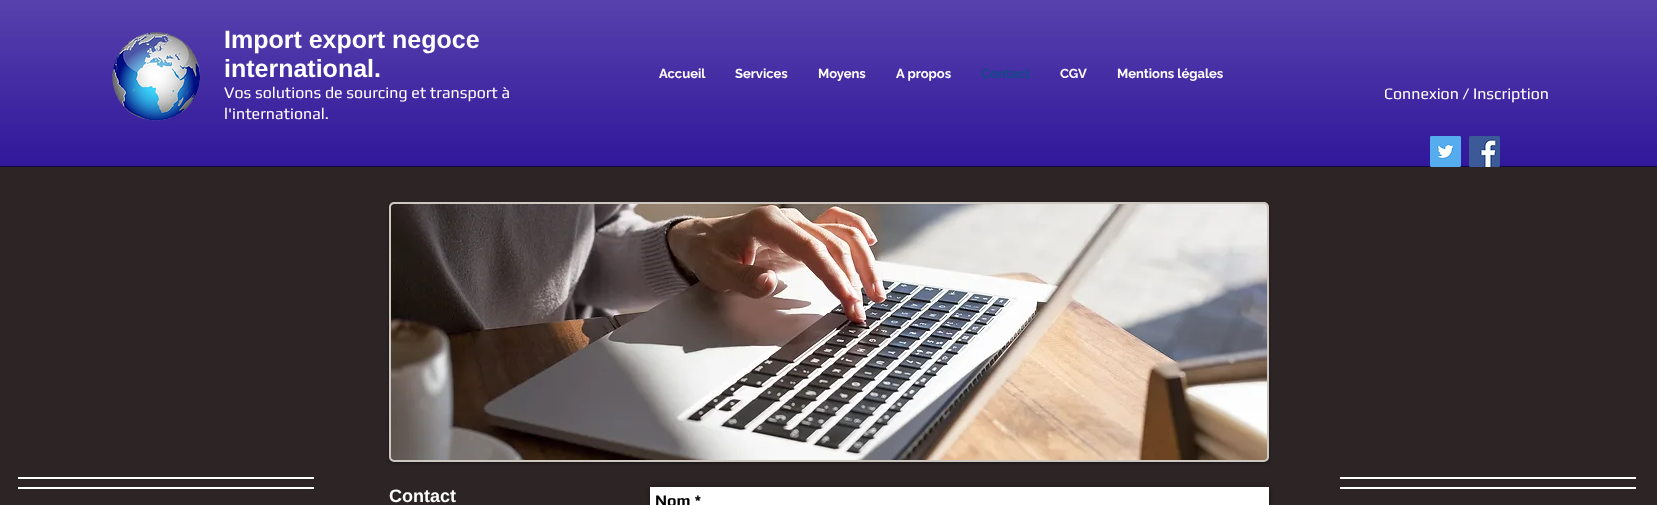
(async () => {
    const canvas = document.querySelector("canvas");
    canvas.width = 1657;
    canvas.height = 505;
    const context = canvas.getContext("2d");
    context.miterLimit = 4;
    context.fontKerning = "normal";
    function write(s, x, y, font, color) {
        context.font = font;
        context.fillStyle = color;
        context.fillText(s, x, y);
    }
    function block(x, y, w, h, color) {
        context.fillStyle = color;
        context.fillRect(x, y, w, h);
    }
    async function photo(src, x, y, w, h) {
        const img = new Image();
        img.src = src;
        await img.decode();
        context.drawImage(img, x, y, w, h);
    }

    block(0, 0, 1657, 505, "rgb(29, 0, 145)");
    await photo("media/1.png", 0, 0, 1657, 166);
    block(0, 166, 1657, 1, "rgb(20, 9, 62)");
    await photo("media/2.png", 112, 32, 89, 89);
    write("Import export negoce", 224, 48, "bold 25px Liberation Sans", "rgb(255, 255, 255)");
    write("international.", 224, 77, "bold 25px Liberation Sans", "rgb(255, 255, 255)");
    write("Vos solutions de sourcing et transport à", 224, 98, "16px Play", "rgb(255, 255, 255)");
    write("l'international.", 224, 119, "16px Play", "rgb(255, 255, 255)");
    write("Accueil", 659, 78, "bold 13px Raleway", "rgb(255, 255, 255)");
    write("Services", 735, 78, "bold 13px Raleway", "rgb(255, 255, 255)");
    write("Moyens", 818, 78, "bold 13px Raleway", "rgb(255, 255, 255)");
    write("A propos", 896, 78, "bold 13px Raleway", "rgb(255, 255, 255)");
    write("Contact", 981, 78, "bold 13px Raleway", "rgb(15, 76, 133)");
    write("CGV", 1060, 78, "bold 13px Raleway", "rgb(255, 255, 255)");
    write("Mentions légales", 1117, 78, "bold 13px Raleway", "rgb(255, 255, 255)");
    write("Connexion / Inscription", 1384, 99, "16px Play", "rgb(255, 255, 255)");
    await photo("media/3.png", 1430, 136, 31, 31);
    await photo("media/4.png", 1469, 136, 31, 31);
    block(0, 167, 1657, 338, "rgb(45, 37, 37)");
    context.fillStyle = "rgba(0, 0, 0, 0.5)";
    context.filter = "blur(1.5px)";
    context.beginPath();
    context.roundRect(389, 203, 880, 260, 5);
    context.fill();
    context.filter = "none";
    context.fillStyle = "rgb(207, 199, 194)";
    context.beginPath();
    context.roundRect(390, 203, 878, 258, 4);
    context.fill();
    context.strokeStyle = "rgb(207, 199, 194)";
    context.lineWidth = 2;
    context.stroke();
    await photo("media/5.png", 391, 204, 876, 256);
    block(18, 477, 296, 2, "rgb(255, 255, 255)");
    block(1340, 477, 296, 2, "rgb(255, 255, 255)");
    block(18, 487, 296, 2, "rgb(255, 255, 255)");
    block(1340, 487, 296, 2, "rgb(255, 255, 255)");
    write("Contact", 389, 502, "bold 18px Liberation Sans", "rgb(255, 255, 255)");
    context.fillStyle = "rgba(0, 0, 0, 0.6)";
    context.filter = "blur(2px)";
    context.beginPath();
    context.rect(650, 488, 619, 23);
    context.fill();
    context.filter = "none";
    block(650, 487, 619, 18, "rgb(255, 255, 255)");
    write("Nom *", 655, 506, "bold 16px Play", "rgb(0, 0, 0)");
})();
